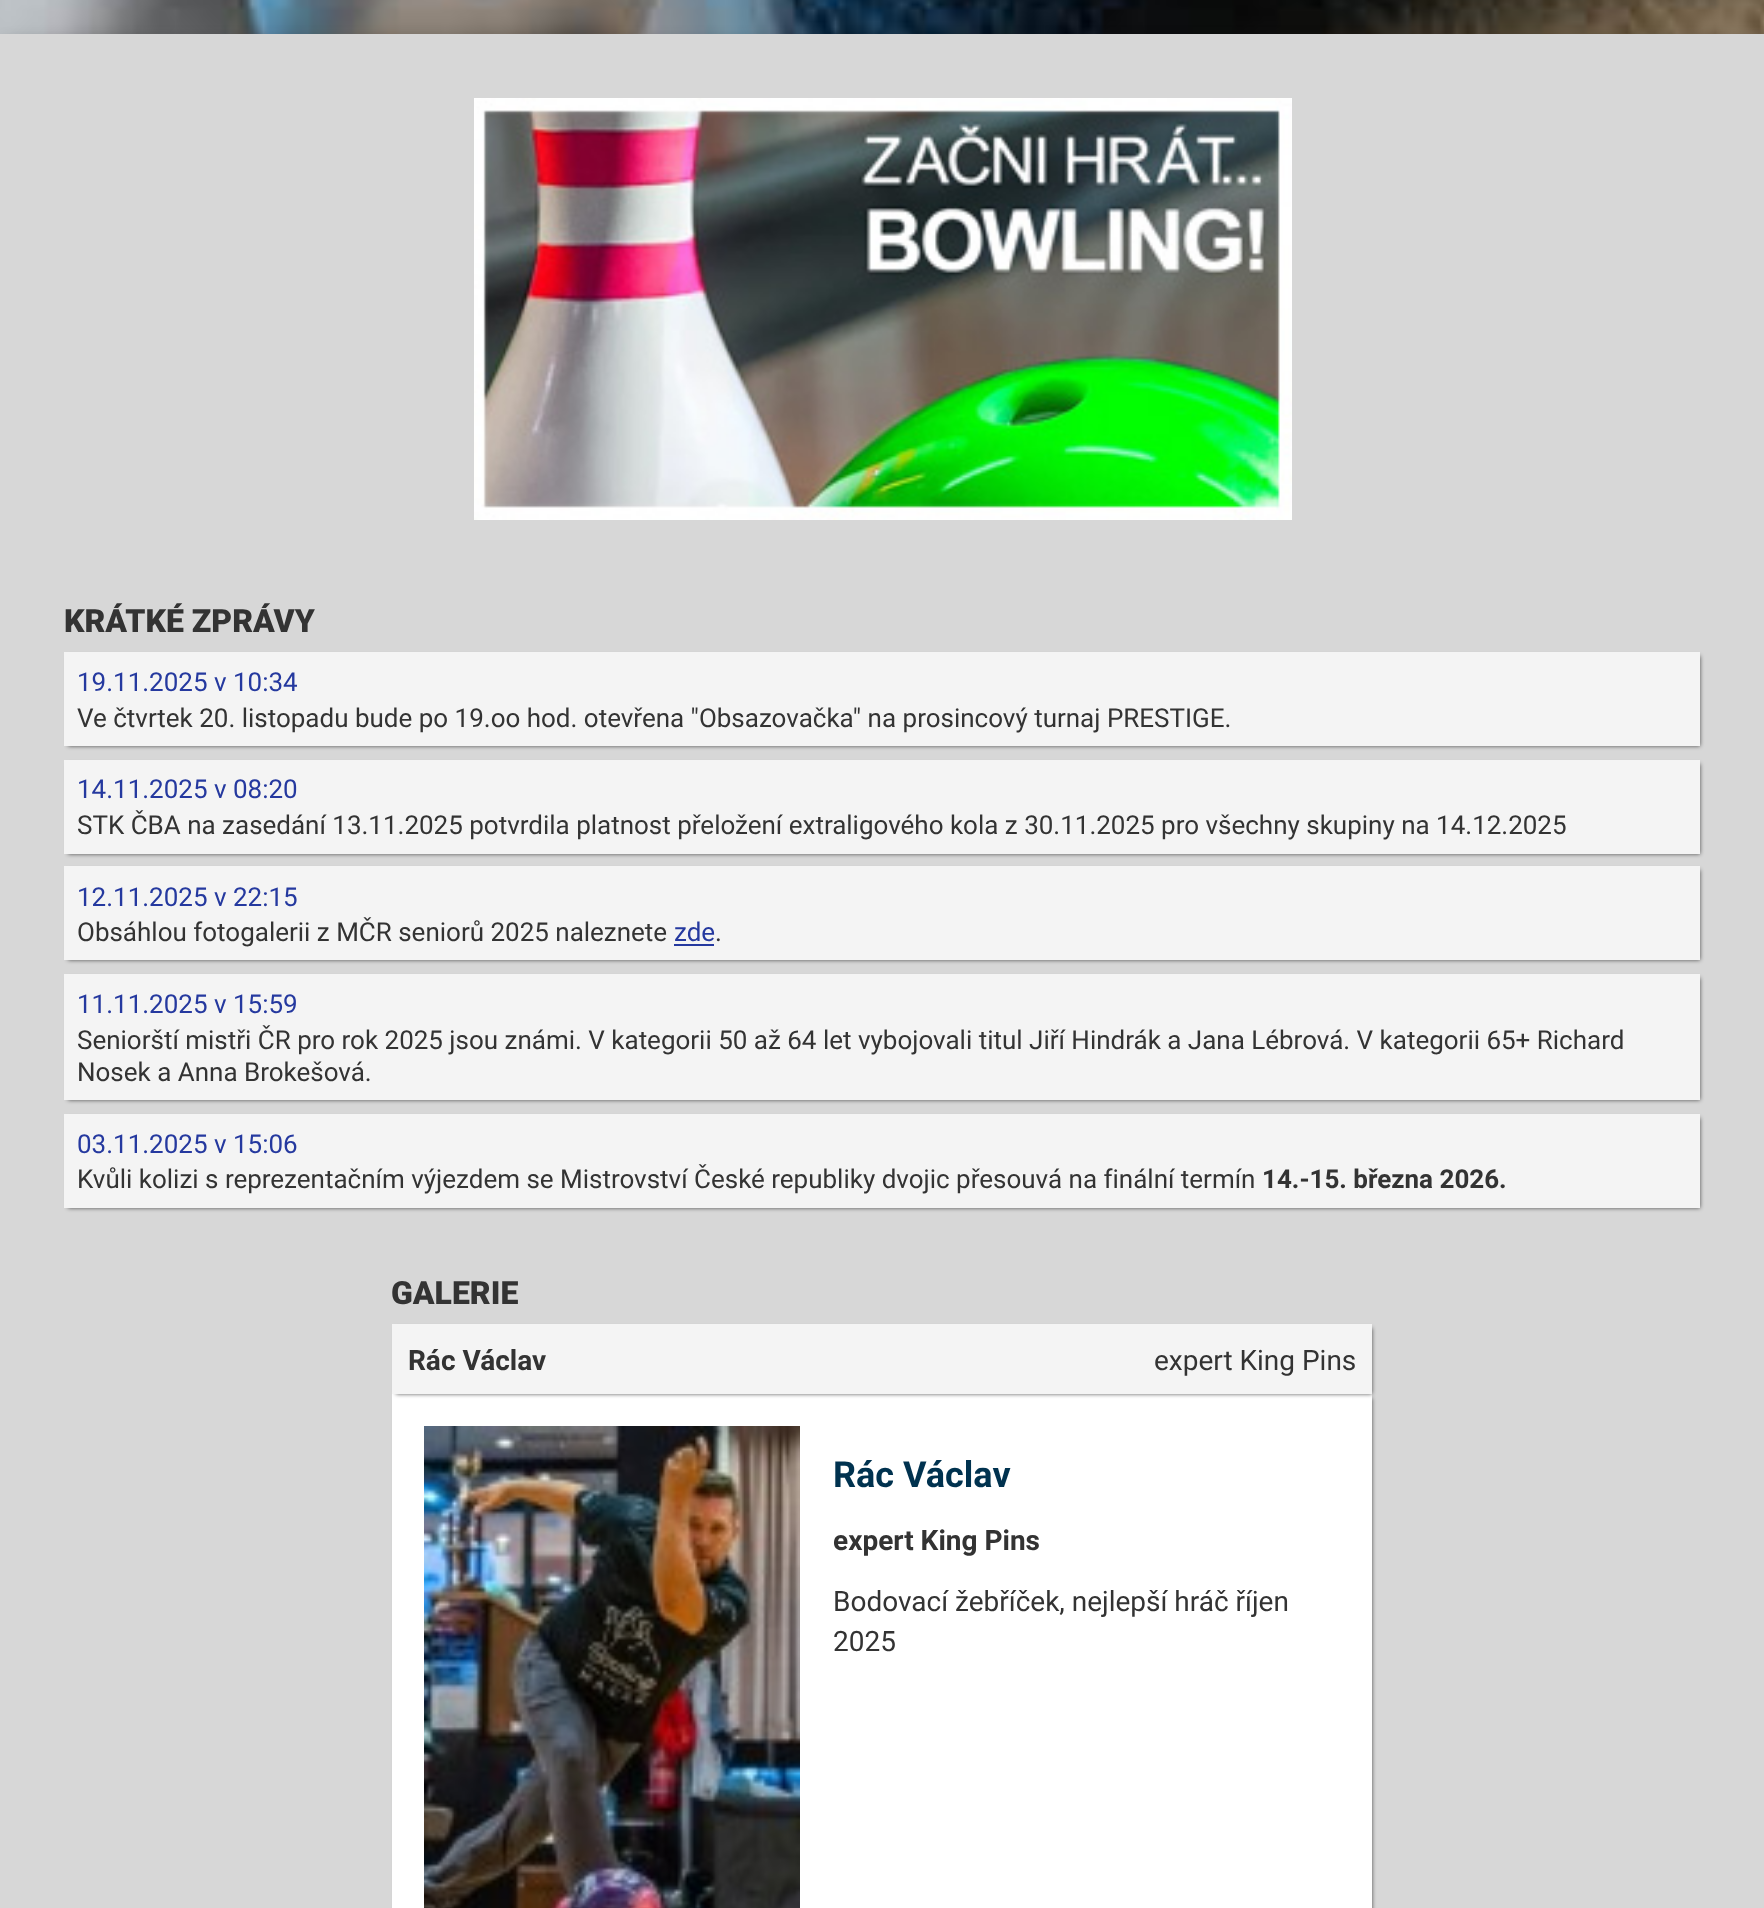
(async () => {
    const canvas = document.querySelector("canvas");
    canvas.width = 1764;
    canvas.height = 1908;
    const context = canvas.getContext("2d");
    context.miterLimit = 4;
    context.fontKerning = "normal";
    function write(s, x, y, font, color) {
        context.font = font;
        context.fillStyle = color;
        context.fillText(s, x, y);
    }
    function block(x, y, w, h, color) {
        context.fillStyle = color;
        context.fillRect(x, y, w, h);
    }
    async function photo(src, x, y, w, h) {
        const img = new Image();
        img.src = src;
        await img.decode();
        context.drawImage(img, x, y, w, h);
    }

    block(0, 0, 1764, 1908, "rgb(255, 255, 255)");
    await photo("media/1.png", 0, 0, 1764, 34);
    context.fillStyle = "rgba(0, 0, 0, 0.23)";
    context.filter = "blur(7px)";
    context.beginPath();
    context.rect(6, 40, 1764, 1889);
    context.fill();
    context.filter = "none";
    block(0, 34, 1764, 1874, "rgb(215, 215, 215)");
    await photo("media/2.png", 474, 98, 818, 422);
    write("KRÁTKÉ ZPRÁVY", 64, 632, "900 32px Roboto", "rgb(51, 51, 51)");
    context.fillStyle = "rgba(0, 0, 0, 0.66)";
    context.filter = "blur(2px)";
    context.beginPath();
    context.rect(68, 656, 1632, 90);
    context.fill();
    context.filter = "none";
    block(64, 652, 1636, 94, "rgb(244, 244, 244)");
    write("19.11.2025 v 10:34", 77, 691, "26px Roboto", "rgb(37, 57, 159)");
    write("Ve čtvrtek 20. listopadu bude po 19.oo hod. otevřena \"Obsazovačka\" na prosincový turnaj PRESTIGE.", 77, 727, "26px Roboto", "rgb(51, 51, 51)");
    context.fillStyle = "rgba(0, 0, 0, 0.66)";
    context.filter = "blur(2px)";
    context.beginPath();
    context.rect(68, 764, 1632, 90);
    context.fill();
    context.filter = "none";
    block(64, 760, 1636, 94, "rgb(244, 244, 244)");
    write("14.11.2025 v 08:20", 77, 798, "26px Roboto", "rgb(37, 57, 159)");
    write("STK ČBA na zasedání 13.11.2025 potvrdila platnost přeložení extraligového kola z 30.11.2025 pro všechny skupiny na 14.12.2025", 77, 834, "26px Roboto", "rgb(51, 51, 51)");
    context.fillStyle = "rgba(0, 0, 0, 0.66)";
    context.filter = "blur(2px)";
    context.beginPath();
    context.rect(68, 870, 1632, 90);
    context.fill();
    context.filter = "none";
    block(64, 866, 1636, 94, "rgb(244, 244, 244)");
    write("12.11.2025 v 22:15", 77, 906, "26px Roboto", "rgb(37, 57, 159)");
    write("Obsáhlou fotogalerii z MČR seniorů 2025 naleznete", 77, 941, "26px Roboto", "rgb(51, 51, 51)");
    write("zde", 674, 941, "26px Roboto", "rgb(37, 57, 159)");
    block(674, 944, 40, 2, "rgb(37, 57, 159)");
    write(".", 715, 941, "26px Roboto", "rgb(51, 51, 51)");
    context.fillStyle = "rgba(0, 0, 0, 0.66)";
    context.filter = "blur(2px)";
    context.beginPath();
    context.rect(68, 978, 1632, 122);
    context.fill();
    context.filter = "none";
    block(64, 974, 1636, 126, "rgb(244, 244, 244)");
    write("11.11.2025 v 15:59", 77, 1013, "26px Roboto", "rgb(37, 57, 159)");
    write("Seniorští mistři ČR pro rok 2025 jsou známi. V kategorii 50 až 64 let vybojovali titul Jiří Hindrák a Jana Lébrová. V kategorii 65+ Richard", 77, 1049, "26px Roboto", "rgb(51, 51, 51)");
    write("Nosek a Anna Brokešová.", 77, 1081, "26px Roboto", "rgb(51, 51, 51)");
    context.fillStyle = "rgba(0, 0, 0, 0.66)";
    context.filter = "blur(2px)";
    context.beginPath();
    context.rect(68, 1118, 1632, 90);
    context.fill();
    context.filter = "none";
    block(64, 1114, 1636, 94, "rgb(244, 244, 244)");
    write("03.11.2025 v 15:06", 77, 1153, "26px Roboto", "rgb(37, 57, 159)");
    write("Kvůli kolizi s reprezentačním výjezdem se Mistrovství České republiky dvojic přesouvá na finální termín", 77, 1188, "26px Roboto", "rgb(51, 51, 51)");
    write("14.-15. března 2026.", 1262, 1188, "bold 26px Roboto", "rgb(51, 51, 51)");
    write("GALERIE", 391, 1304, "900 32px Roboto", "rgb(51, 51, 51)");
    context.fillStyle = "rgba(0, 0, 0, 0.66)";
    context.filter = "blur(2px)";
    context.beginPath();
    context.rect(396, 1398, 976, 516);
    context.fill();
    context.filter = "none";
    block(392, 1394, 980, 514, "rgb(255, 255, 255)");
    context.fillStyle = "rgba(0, 0, 0, 0.66)";
    context.filter = "blur(2px)";
    context.beginPath();
    context.rect(396, 1328, 976, 66);
    context.fill();
    context.filter = "none";
    block(392, 1324, 980, 70, "rgb(244, 244, 244)");
    write("Rác Václav", 408, 1370, "bold 28px Roboto", "rgb(51, 51, 51)");
    write("expert King Pins", 1154, 1370, "28px Roboto", "rgb(51, 51, 51)");
    await photo("media/3.png", 424, 1426, 376, 482);
    write("Rác Václav", 833, 1487, "bold 36px Roboto", "rgb(0, 50, 79)");
    write("expert King Pins", 833, 1550, "bold 28px Roboto", "rgb(51, 51, 51)");
    write("Bodovací žebříček, nejlepší hráč říjen", 833, 1611, "28px Roboto", "rgb(51, 51, 51)");
    write("2025", 833, 1651, "28px Roboto", "rgb(51, 51, 51)");
})();
